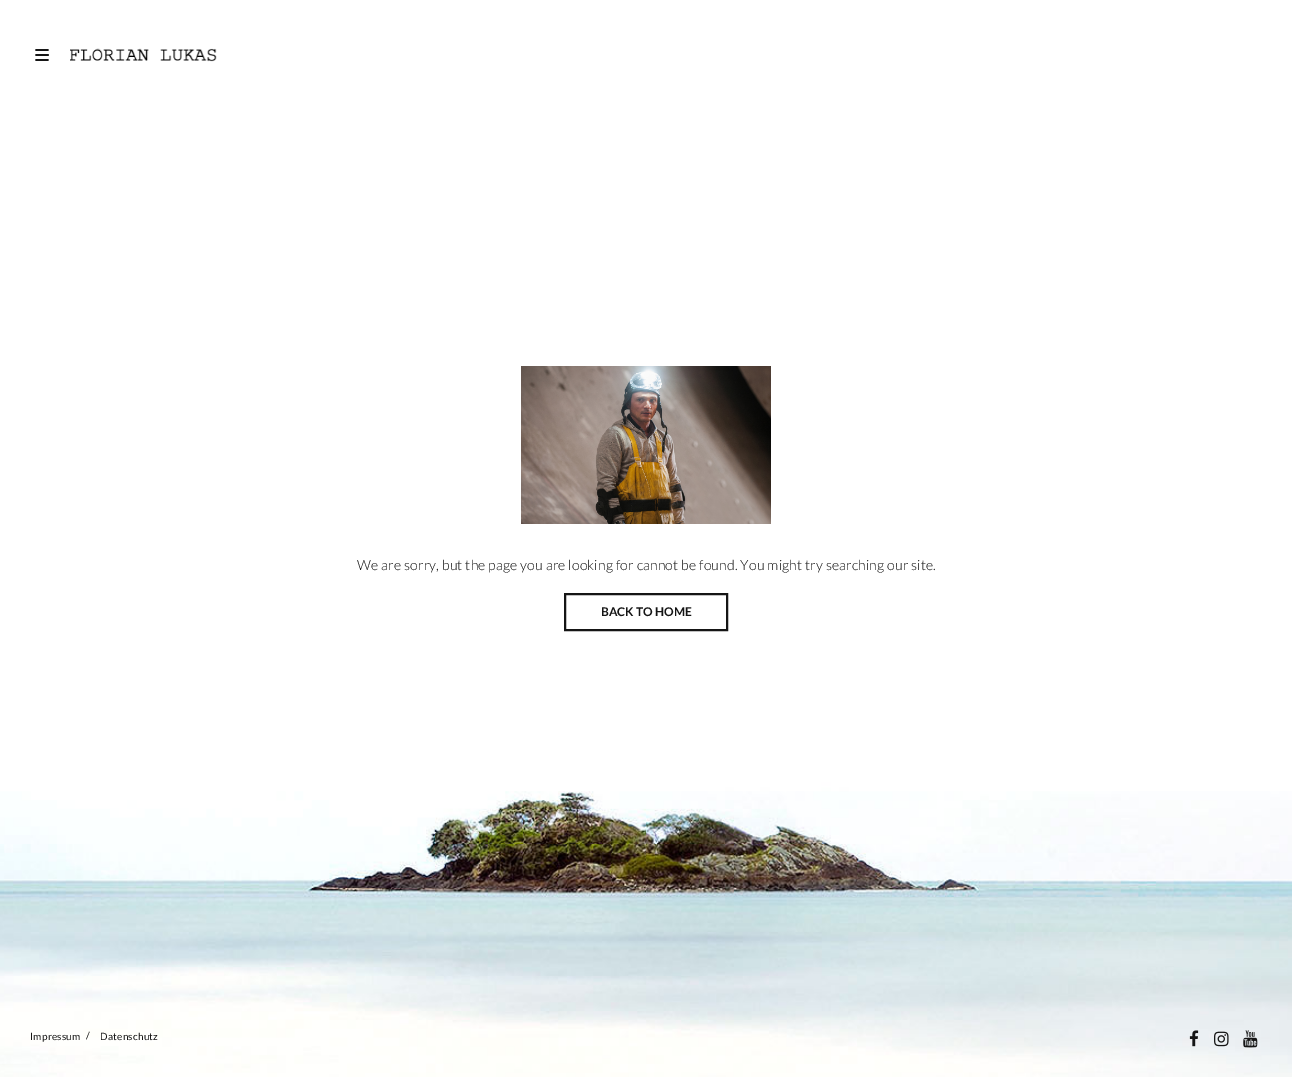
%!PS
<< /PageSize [1292 1077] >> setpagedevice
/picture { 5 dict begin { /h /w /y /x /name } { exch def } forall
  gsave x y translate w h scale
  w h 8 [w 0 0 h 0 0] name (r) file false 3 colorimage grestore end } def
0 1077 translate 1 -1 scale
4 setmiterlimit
1 setgray
0 0 1292 1077 rectfill
(img3.rgb) 0 0 1292 1077 picture
(img1.rgb) 35 49 14 12 picture
(img2.rgb) 70 48 147 14 picture
(img4.rgb) 521 366 250 158 picture
/Lato-Light [14 0 0 -14 0 0] selectfont
0.039 setgray
357 570 moveto 0.15 0 (We are sorry, but the page you are looking for cannot be found. You might try searching our site.) ashow
0.082 setgray
2 setlinewidth
565 594 162 36 rectstroke
/Lato-Bold [12 0 0 -12 0 0] selectfont
601 616 moveto (BACK TO HOME) show
/Lato-Regular [10 0 0 -10 0 0] selectfont
30 1040 moveto 0.25 0 (Impressum) ashow
0.039 setgray
86 1039 moveto 0.25 0 (/) ashow
0.082 setgray
100 1040 moveto 0.25 0 (Datenschutz) ashow
(img5.rgb) 1189 1030 10 17 picture
(img6.rgb) 1214 1031 15 16 picture
(img7.rgb) 1243 1030 15 18 picture
showpage
